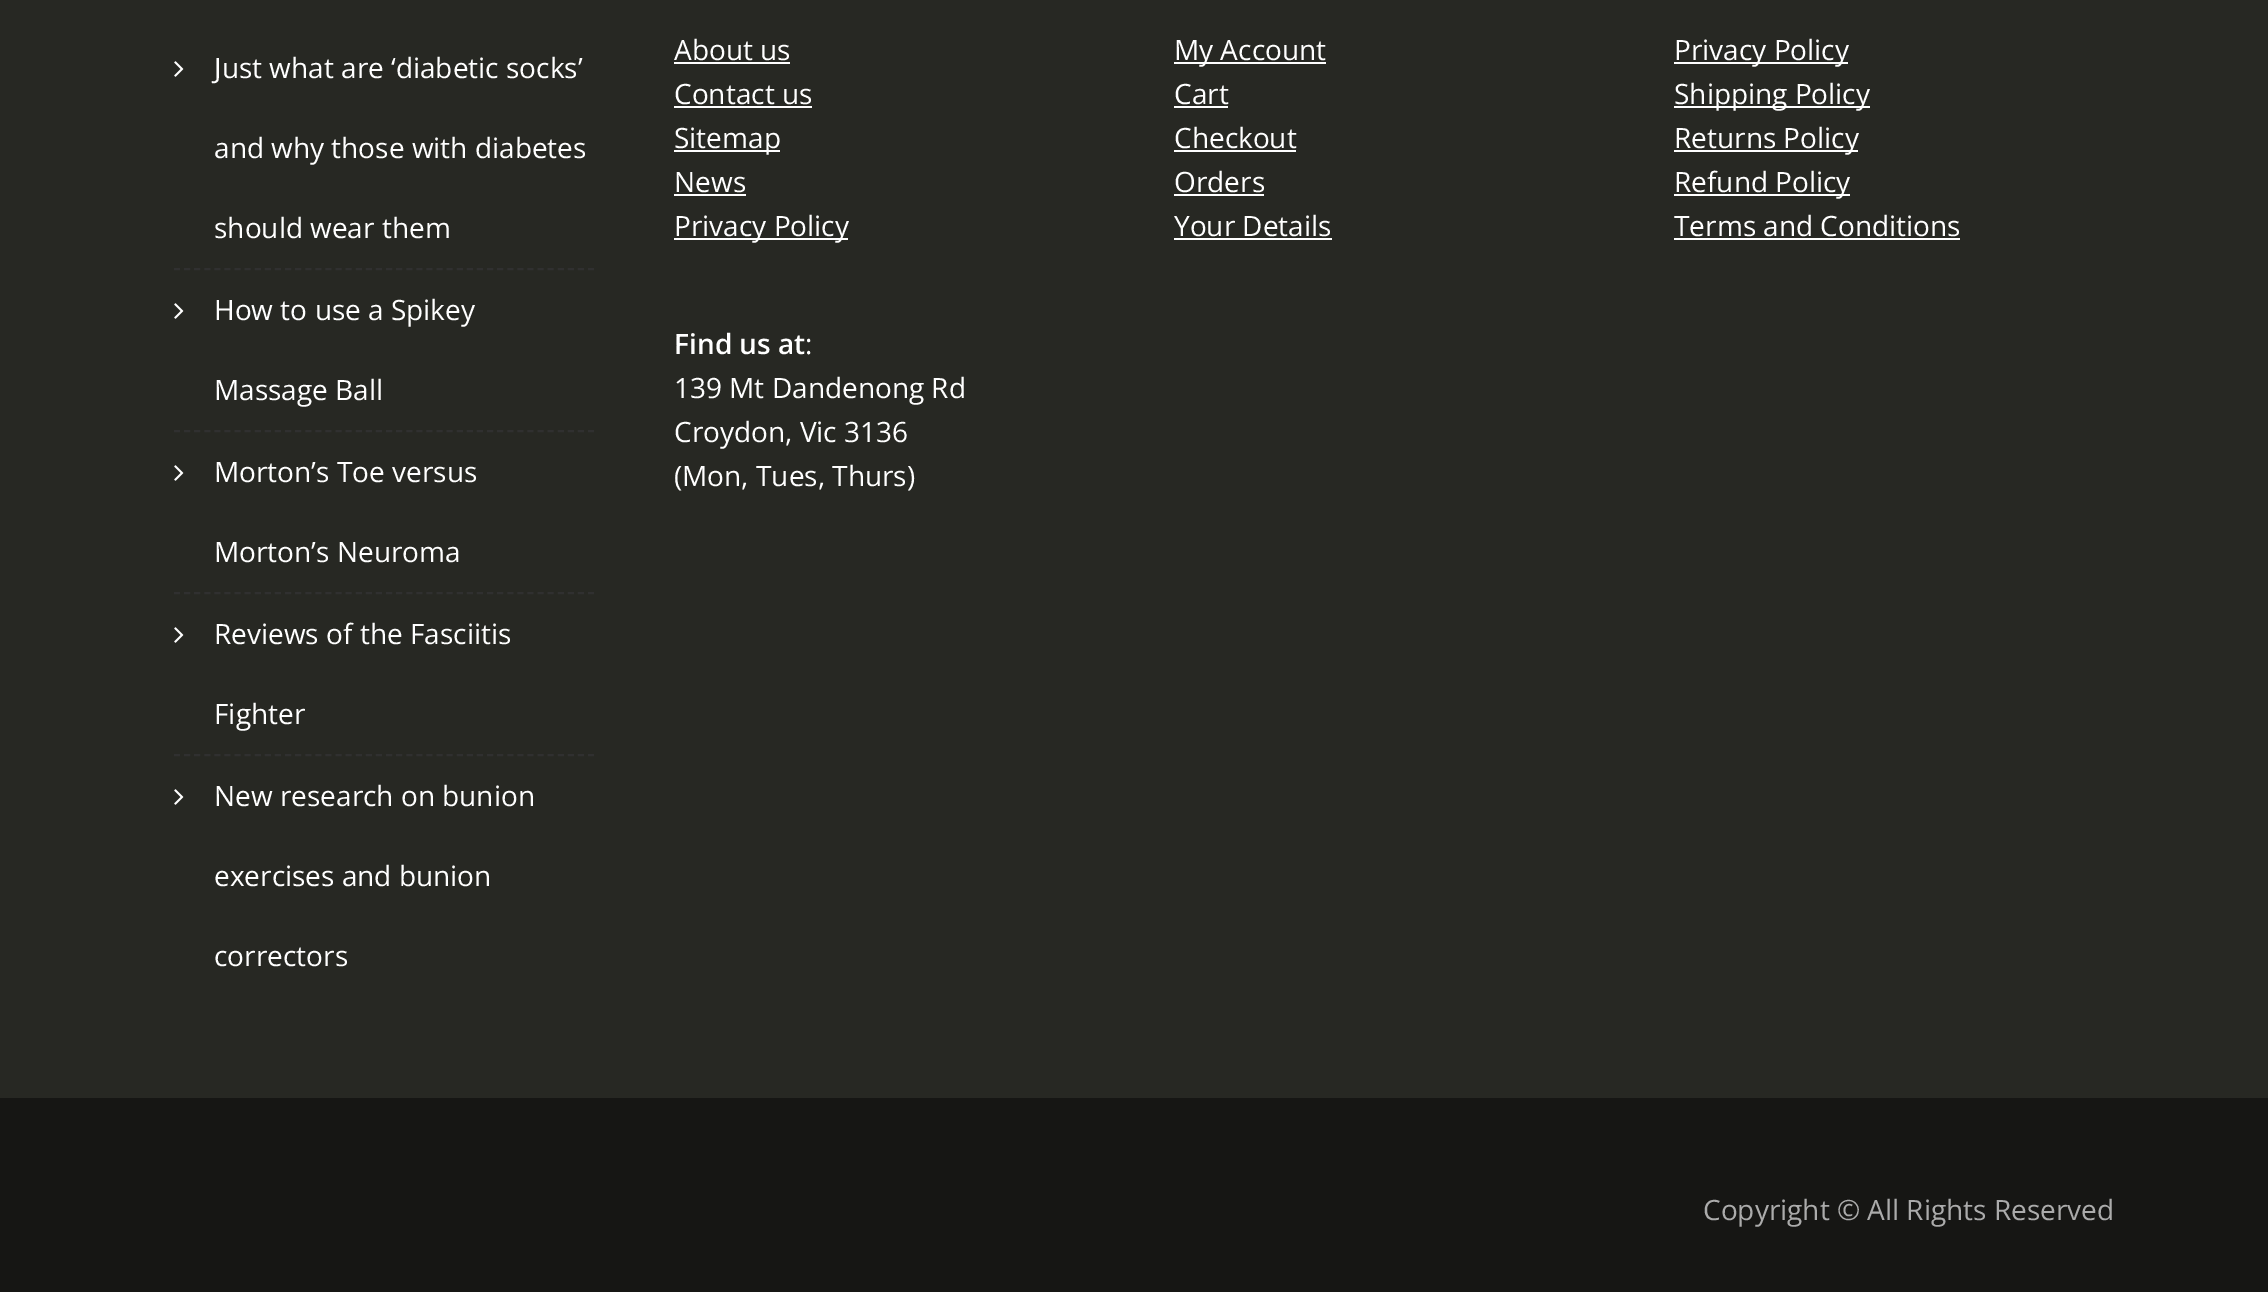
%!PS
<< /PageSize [2268 1292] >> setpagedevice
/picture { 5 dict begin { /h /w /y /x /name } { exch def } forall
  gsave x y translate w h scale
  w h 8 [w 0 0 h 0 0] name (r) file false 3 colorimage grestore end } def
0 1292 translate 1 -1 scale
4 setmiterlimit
0.153 0.157 0.137 setrgbcolor
0 0 2268 1292 rectfill
(img1.rgb) 174 61 10 16 picture
/OpenSans-Regular [28 0 0 -28 0 0] selectfont
1 setgray
214 78 moveto (Just what are ‘diabetic socks’) show
214 158 moveto (and why those with diabetes) show
214 238 moveto (should wear them) show
0.188 setgray
2 setlinewidth
[6 4.1] 0 setdash
newpath 174 269 moveto 594 269 lineto stroke
(img1.rgb) 174 303 10 16 picture
1 setgray
214 320 moveto (How to use a Spikey) show
214 400 moveto (Massage Ball) show
0.188 setgray
newpath 174 431 moveto 594 431 lineto stroke
(img1.rgb) 174 465 10 16 picture
1 setgray
214 482 moveto (Morton’s Toe versus) show
214 562 moveto (Morton’s Neuroma) show
0.188 setgray
newpath 174 593 moveto 594 593 lineto stroke
(img1.rgb) 174 627 10 16 picture
1 setgray
214 644 moveto (Reviews of the Fasciitis) show
214 724 moveto (Fighter) show
0.188 setgray
newpath 174 755 moveto 594 755 lineto stroke
(img1.rgb) 174 789 10 16 picture
1 setgray
214 806 moveto (New research on bunion) show
214 886 moveto (exercises and bunion) show
214 966 moveto (correctors) show
674 60 moveto (About us) show
674 62 116 2 rectfill
674 104 moveto (Contact us) show
674 106 138 2 rectfill
674 150 106 2 rectfill
674 148 moveto (Sitemap) show
674 192 moveto (News) show
674 194 72 2 rectfill
674 238 174 2 rectfill
674 236 moveto (Privacy Policy) show
/OpenSans-SemiBold [28 0 0 -28 0 0] selectfont
674 354 moveto (Find us at) show
/OpenSans-Regular [28 0 0 -28 0 0] selectfont
805 354 moveto (:) show
674 398 moveto (139 Mt Dandenong Rd) show
674 442 moveto (Croydon, Vic 3136) show
674 486 moveto (\(Mon, Tues, Thurs\)) show
1174 62 152 2 rectfill
1174 60 moveto (My Account) show
1174 104 moveto (Cart) show
1174 106 54 2 rectfill
1174 148 moveto (Checkout) show
1174 150 122 2 rectfill
1174 192 moveto (Orders) show
1174 194 90 2 rectfill
1174 236 moveto (Your Details) show
1174 238 158 2 rectfill
1674 62 174 2 rectfill
1674 60 moveto (Privacy Policy) show
1674 106 196 2 rectfill
1674 104 moveto (Shipping Policy) show
1674 150 184 2 rectfill
1674 148 moveto (Returns Policy) show
1674 194 176 2 rectfill
1674 192 moveto (Refund Policy) show
1674 236 moveto (Terms and Conditions) show
1674 238 286 2 rectfill
0.086 0.086 0.078 setrgbcolor
0 1098 2268 194 rectfill
0.671 setgray
1703 1220 moveto (Copyright © All Rights Reserved) show
showpage
